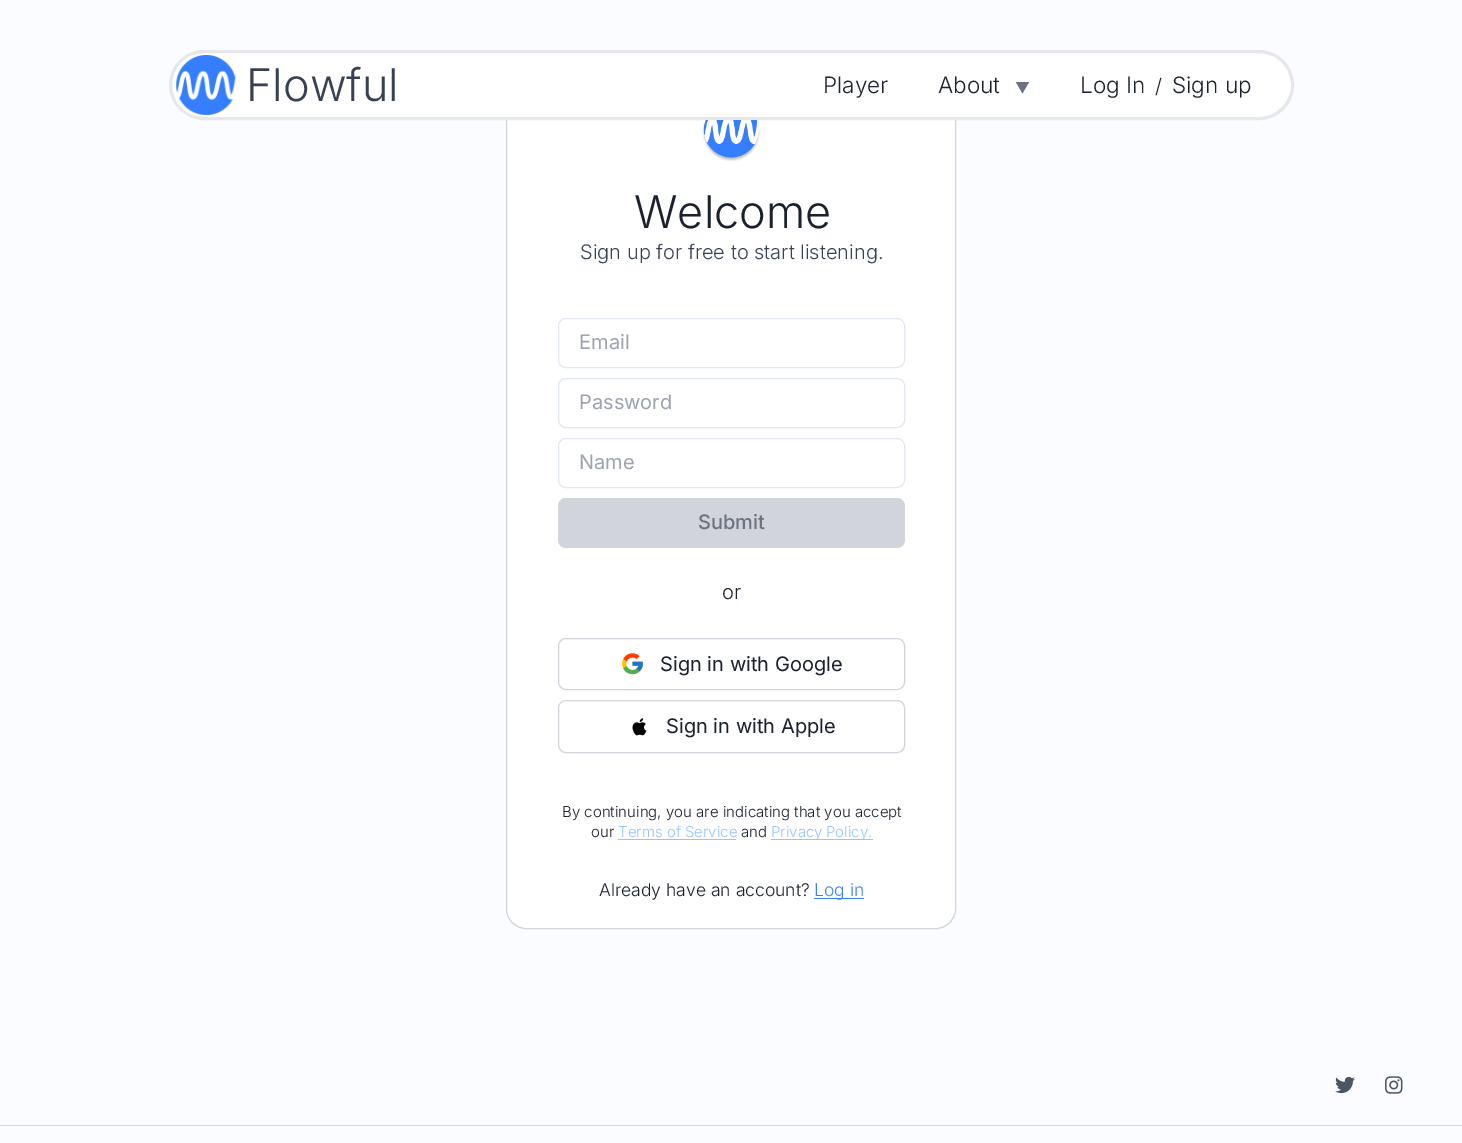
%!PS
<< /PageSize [1462 1143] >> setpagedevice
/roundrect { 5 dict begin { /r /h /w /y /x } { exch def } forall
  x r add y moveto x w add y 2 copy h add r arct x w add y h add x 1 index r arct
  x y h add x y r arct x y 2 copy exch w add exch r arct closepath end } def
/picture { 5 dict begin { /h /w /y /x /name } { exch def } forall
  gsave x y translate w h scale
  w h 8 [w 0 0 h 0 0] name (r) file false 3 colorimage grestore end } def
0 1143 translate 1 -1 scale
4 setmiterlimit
0.98 0.988 1 setrgbcolor
0 0 1462 1143 rectfill
1 setgray
506.5 51.5 449 877 19.5 roundrect gsave fill grestore
0.82 0.835 0.859 setrgbcolor
stroke
1 setgray
170.5 51.5 1122 67 33.5 roundrect gsave fill grestore
0.898 0.906 0.922 setrgbcolor
3 setlinewidth
stroke
(img1.rgb) 176 55 60 60 picture
/Inter-Light [45 0 0 -45 0 0] selectfont
0.216 0.255 0.318 setrgbcolor
246 101 moveto (Flowful) show
/Inter-Light [22.5 0 0 -22.5 0 0] selectfont
0.102 0.125 0.173 setrgbcolor
823 93 moveto (Player) show
938 93 moveto (About) show
/Inter-Light [15 0 0 -15 0 0] selectfont
0.42 0.447 0.502 setrgbcolor
1015 93 moveto (▼) show
/Inter-Light [22.5 0 0 -22.5 0 0] selectfont
0.102 0.125 0.173 setrgbcolor
1080 93 moveto (Log In) show
/Inter-Light [20 0 0 -20 0 0] selectfont
1155 93 moveto (/) show
/Inter-Light [22.5 0 0 -22.5 0 0] selectfont
1172 93 moveto (Sign up) show
(img2.rgb) 702 120 58 41 picture
/Inter-Light [45 0 0 -45 0 0] selectfont
634 228 moveto (Welcome) show
/Inter-Light [20 0 0 -20 0 0] selectfont
0.216 0.255 0.318 setrgbcolor
580 259 moveto (Sign up for free to start listening.) show
0.886 0.91 0.941 setrgbcolor
1 setlinewidth
558.5 318.5 346 49 7.5 roundrect stroke
/Inter-Regular [20 0 0 -20 0 0] selectfont
0.612 0.639 0.686 setrgbcolor
579 349 moveto (Email) show
0.886 0.91 0.941 setrgbcolor
558.5 378.5 346 49 7.5 roundrect stroke
0.612 0.639 0.686 setrgbcolor
579 409 moveto (Password) show
0.886 0.91 0.941 setrgbcolor
558.5 438.5 346 49 7.5 roundrect stroke
0.612 0.639 0.686 setrgbcolor
579 469 moveto (Name) show
0.82 0.835 0.859 setrgbcolor
558 498 347 50 8 roundrect fill
/Inter-Medium [20 0 0 -20 0 0] selectfont
0.42 0.447 0.502 setrgbcolor
698 529 moveto (Submit) show
/Inter-Light [20 0 0 -20 0 0] selectfont
0.102 0.125 0.173 setrgbcolor
722 599 moveto (or) show
0.82 0.835 0.859 setrgbcolor
558.5 638.5 346 51 7.5 roundrect stroke
(img3.rgb) 622 653 21 22 picture
/Inter-Regular [20 0 0 -20 0 0] selectfont
0.102 0.125 0.173 setrgbcolor
660 671 moveto (Sign in with Google) show
0.82 0.835 0.859 setrgbcolor
558.5 700.5 346 52 7.5 roundrect stroke
(img4.rgb) 632 718 15 18 picture
0.102 0.125 0.173 setrgbcolor
666 733 moveto (Sign in with Apple) show
/Inter-Light [15 0 0 -15 0 0] selectfont
562 817 moveto (By continuing, you are indicating that you accept) show
591 837 moveto (our) show
0.576 0.773 0.992 setrgbcolor
618 837 moveto (Terms of Service) show
618 839 118 1 rectfill
0.102 0.125 0.173 setrgbcolor
741 837 moveto (and) show
0.576 0.773 0.992 setrgbcolor
771 839 102 1 rectfill
771 837 moveto -1 0 32 (Privacy Policy.) widthshow
/Inter-Light [17.5 0 0 -17.5 0 0] selectfont
0.102 0.125 0.173 setrgbcolor
599 896 moveto (Already have an account?) show
0.231 0.51 0.965 setrgbcolor
814 898 50 1 rectfill
814 896 moveto (Log in) show
0.82 0.835 0.859 setrgbcolor
0 1125 1462 1 rectfill
(img5.rgb) 1335 1076 20 18 picture
(img6.rgb) 1385 1076 18 18 picture
showpage
